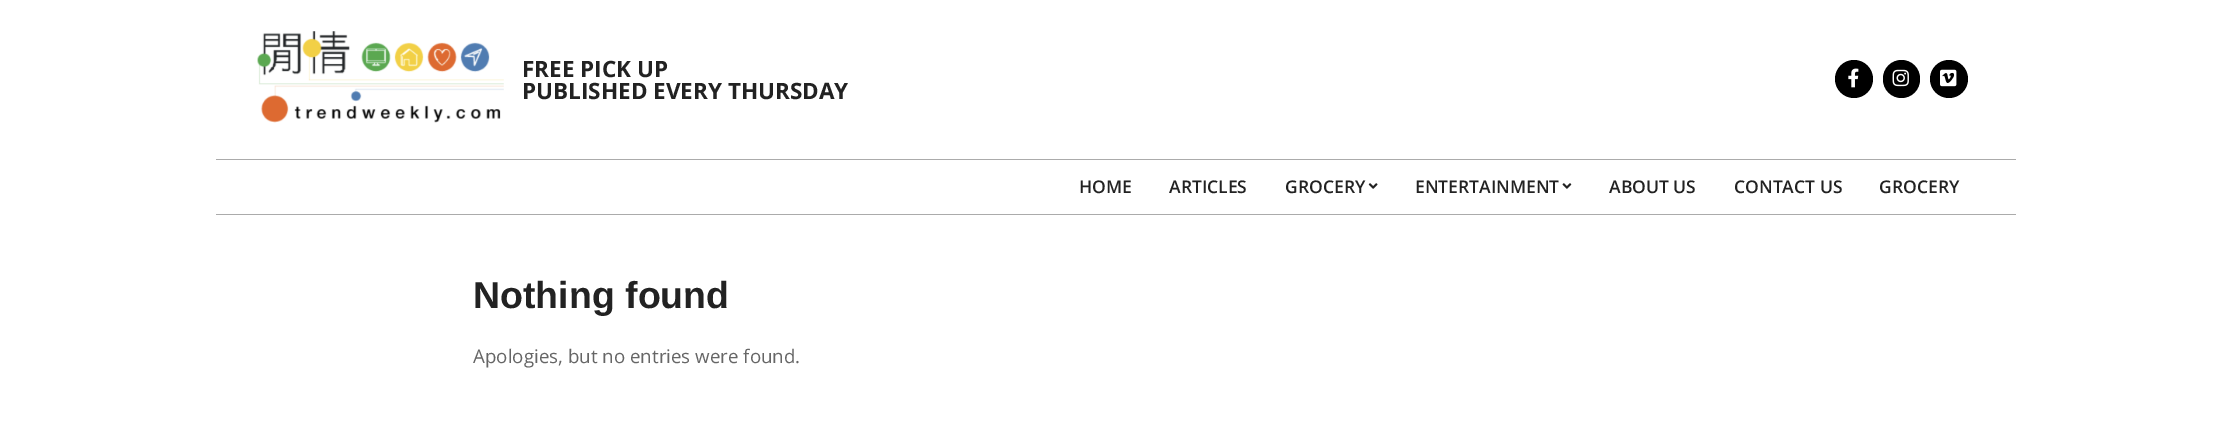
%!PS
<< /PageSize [2231 428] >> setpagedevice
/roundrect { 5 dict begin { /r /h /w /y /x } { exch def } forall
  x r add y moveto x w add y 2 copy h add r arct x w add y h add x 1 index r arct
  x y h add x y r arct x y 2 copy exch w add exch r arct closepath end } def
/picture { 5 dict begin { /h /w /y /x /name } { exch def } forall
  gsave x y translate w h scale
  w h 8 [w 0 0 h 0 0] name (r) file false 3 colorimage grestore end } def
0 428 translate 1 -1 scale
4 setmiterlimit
1 setgray
0 0 2231 428 rectfill
0.671 setgray
216 159 1800 1 rectfill
(img1.rgb) 257 31 247 92 picture
/OpenSans-Bold [22.5 0 0 -22.5 0 0] selectfont
0.133 setgray
522 77 moveto (FREE PICK UP) show
522 99 moveto (PUBLISHED EVERY THURSDAY) show
0 setgray
newpath 1854 79 19 0 360 arc closepath fill
(img2.rgb) 1848 68 11 20 picture
1883 60 37 38 18.5 roundrect fill
(img3.rgb) 1892 69 17 18 picture
newpath 1949 79 19 0 360 arc closepath fill
(img4.rgb) 1940 69 17 18 picture
0.671 setgray
216 214 1800 1 rectfill
/OpenSans-SemiBold [17.5 0 0 -17.5 0 0] selectfont
0.133 setgray
1079 193 moveto (HOME) show
1169 193 moveto (ARTICLES) show
1285 193 moveto (GROCERY) show
(img5.rgb) 1368 183 10 6 picture
1415 193 moveto (ENTERTAINMENT) show
(img6.rgb) 1562 183 10 6 picture
1609 193 moveto (ABOUT US) show
1734 193 moveto (CONTACT US) show
1879 193 moveto (GROCERY) show
/LiberationSans-Bold [37.5 0 0 -37.5 0 0] selectfont
473 308 moveto (Nothing found) show
/OpenSans-Regular [18.75 0 0 -18.75 0 0] selectfont
0.4 setgray
473 363 moveto (Apologies, but no entries were found.) show
showpage
